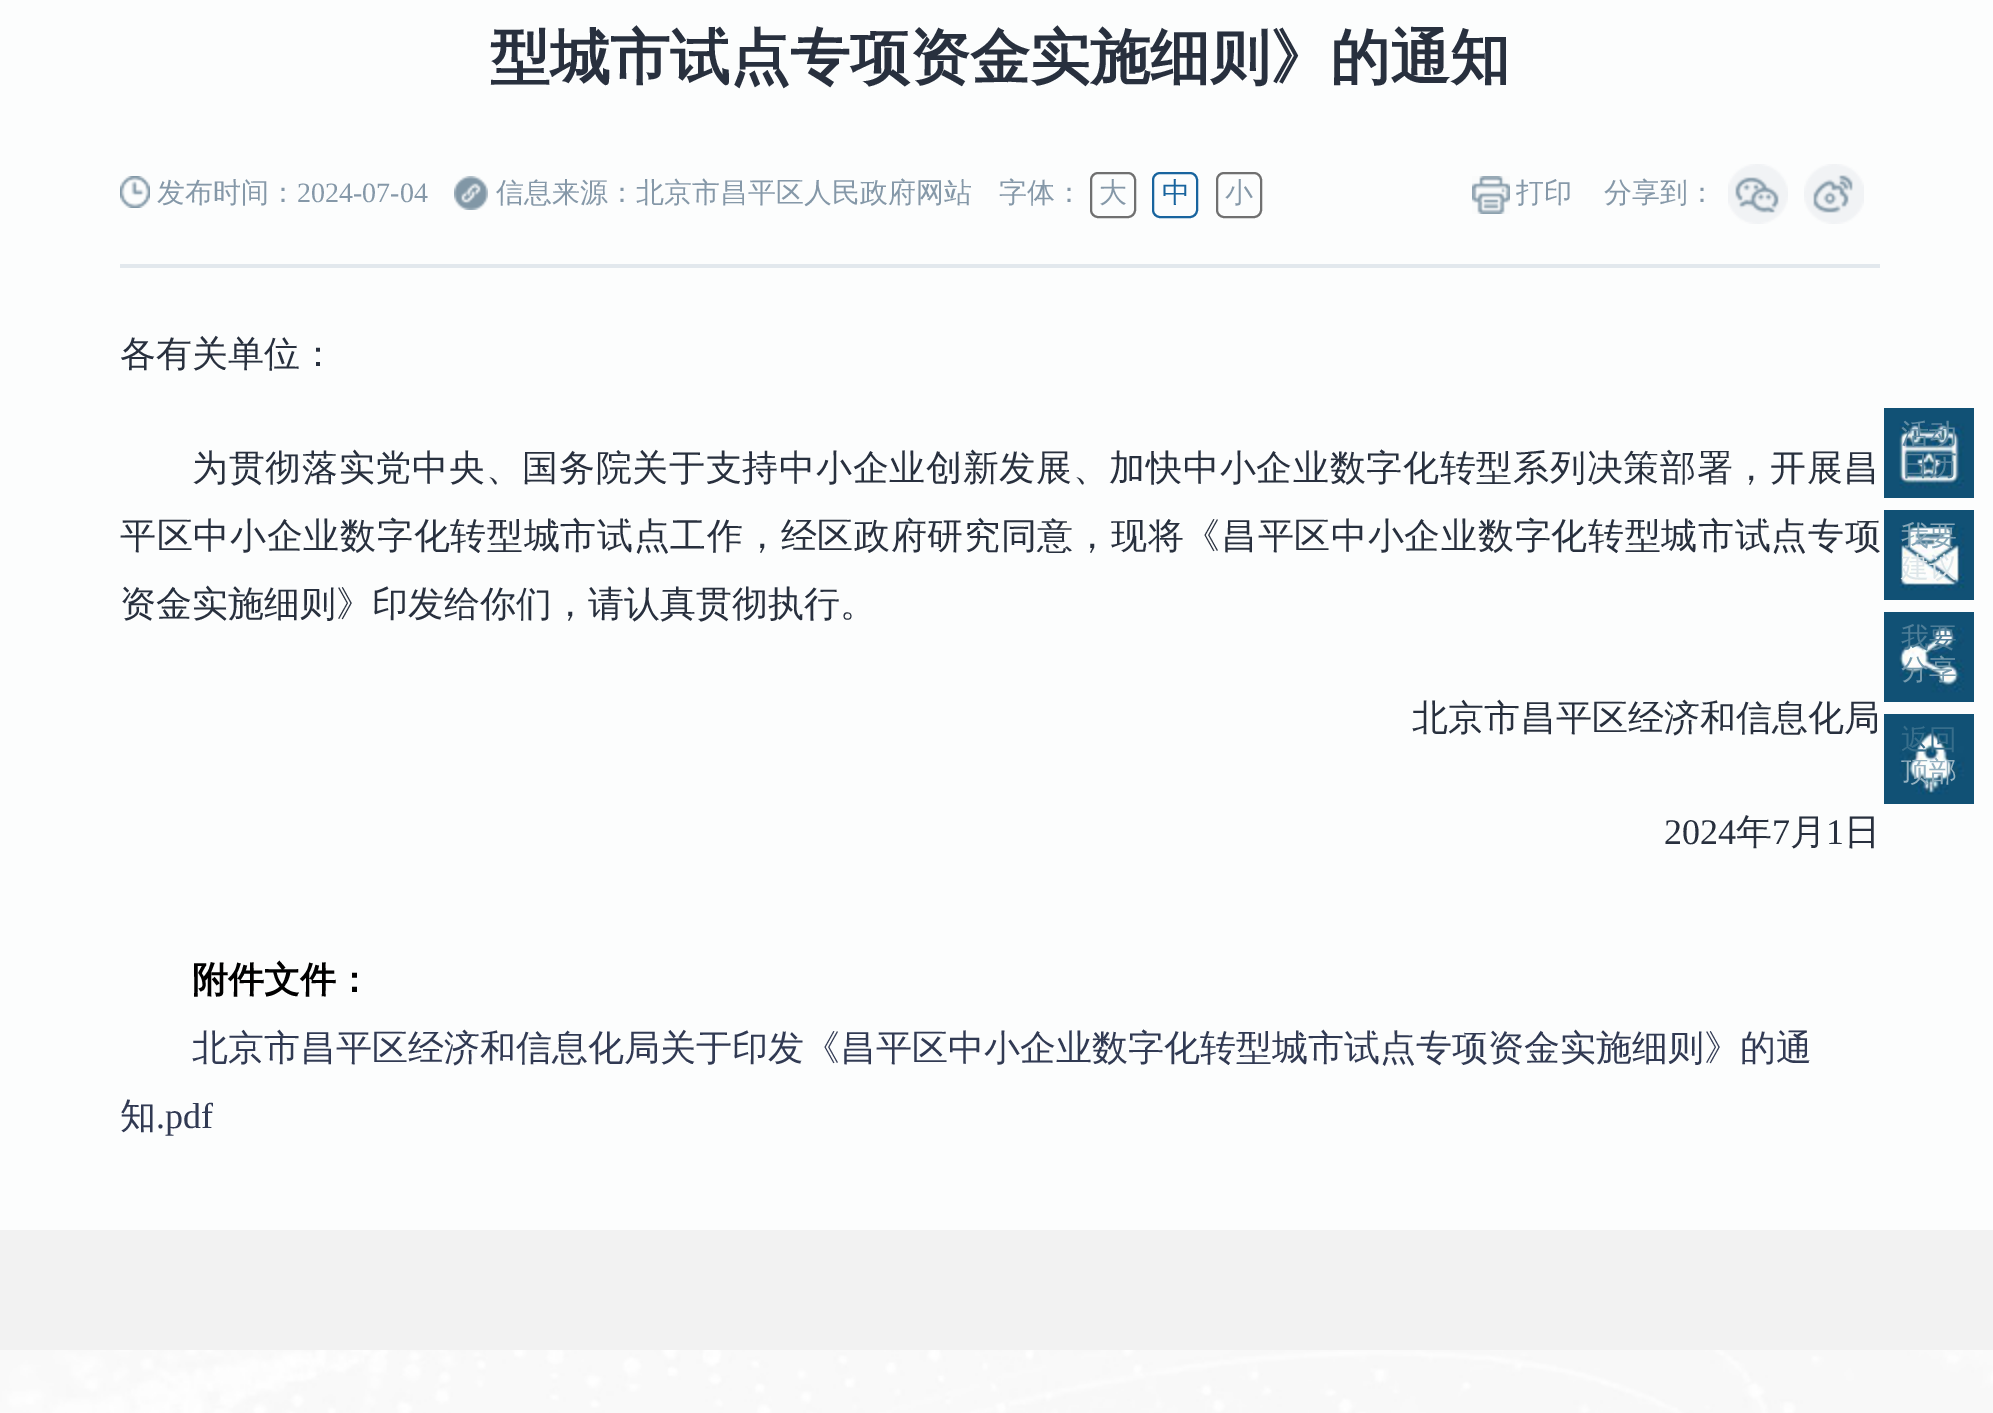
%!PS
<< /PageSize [1993 1413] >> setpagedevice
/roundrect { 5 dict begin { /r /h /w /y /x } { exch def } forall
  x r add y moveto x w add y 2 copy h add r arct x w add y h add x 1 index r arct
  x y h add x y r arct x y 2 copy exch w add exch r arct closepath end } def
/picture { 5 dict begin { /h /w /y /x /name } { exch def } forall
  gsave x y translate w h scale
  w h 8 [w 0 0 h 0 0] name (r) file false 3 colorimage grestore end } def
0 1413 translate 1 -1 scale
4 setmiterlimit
0.949 setgray
0 0 1993 1413 rectfill
0.988 0.992 0.992 setrgbcolor
0 0 1993 1230 rectfill
0.886 0.91 0.929 setrgbcolor
120 264 1760 4 rectfill
/WenQuanYiZenHei-Bold [60 0 0 -60 0 0] selectfont
0.157 0.188 0.243 setrgbcolor
490 78 moveto (型城市试点专项资金实施细则》的通知) show
(img1.rgb) 120 176 30 32 picture
/WenQuanYiZenHei-Medium [28 0 0 -28 0 0] selectfont
0.522 0.596 0.659 setrgbcolor
157 202 moveto (发布时间：) show
/LiberationSerif-Regular [28 0 0 -28 0 0] selectfont
297 202 moveto (2024-07-04) show
(img2.rgb) 454 176 34 34 picture
/WenQuanYiZenHei-Medium [28 0 0 -28 0 0] selectfont
496 202 moveto (信息来源：北京市昌平区人民政府网站) show
999 202 moveto (字体：) show
0.439 setgray
2 setlinewidth
1091 173 44 44 7 roundrect stroke
0.522 0.596 0.659 setrgbcolor
1099 202 moveto (大) show
0.094 0.392 0.62 setrgbcolor
1153 173 44 44 7 roundrect stroke
1162 202 moveto (中) show
0.439 setgray
1217 173 44 44 7 roundrect stroke
0.522 0.596 0.659 setrgbcolor
1225 202 moveto (小) show
(img3.rgb) 1472 176 38 38 picture
1516 202 moveto (打印) show
1604 202 moveto (分享到：) show
(img4.rgb) 1728 164 60 60 picture
(img5.rgb) 1804 164 60 60 picture
/WenQuanYiZenHei-Medium [36 0 0 -36 0 0] selectfont
0.157 0.188 0.243 setrgbcolor
120 366 moveto (各有关单位：) show
192 480 moveto 0.7 0 (为贯彻落实党中央、国务院关于支持中小企业创新发展、加快中小企业数字化转型系列决策部署，开展昌) ashow
120 548 moveto 0.7 0 (平区中小企业数字化转型城市试点工作，经区政府研究同意，现将《昌平区中小企业数字化转型城市试点专项) ashow
120 616 moveto (资金实施细则》印发给你们，请认真贯彻执行。) show
1412 730 moveto (北京市昌平区经济和信息化局) show
/LiberationSerif-Regular [36 0 0 -36 0 0] selectfont
1664 844 moveto (2024) show
/WenQuanYiZenHei-Medium [36 0 0 -36 0 0] selectfont
1736 844 moveto (年) show
/LiberationSerif-Regular [36 0 0 -36 0 0] selectfont
1772 844 moveto (7) show
/WenQuanYiZenHei-Medium [36 0 0 -36 0 0] selectfont
1790 844 moveto (月) show
/LiberationSerif-Regular [36 0 0 -36 0 0] selectfont
1826 844 moveto (1) show
/WenQuanYiZenHei-Medium [36 0 0 -36 0 0] selectfont
1844 844 moveto (日) show
/WenQuanYiZenHei-Bold [36 0 0 -36 0 0] selectfont
0 setgray
192 992 moveto (附件文件：) show
/WenQuanYiZenHei-Medium [36 0 0 -36 0 0] selectfont
0.192 0.227 0.325 setrgbcolor
192 1060 moveto (北京市昌平区经济和信息化局关于印发《昌平区中小企业数字化转型城市试点专项资金实施细则》的通) show
120 1128 moveto (知) show
/LiberationSerif-Regular [36 0 0 -36 0 0] selectfont
156 1128 moveto (.pdf) show
(img6.rgb) 1884 408 90 90 picture
/WenQuanYiZenHei-Medium [28 0 0 -28 0 0] selectfont
0.38 0.545 0.639 setrgbcolor
1901 443 moveto (活动) show
0.341 0.514 0.612 setrgbcolor
1901 475 moveto (日历) show
(img7.rgb) 1884 510 90 90 picture
0.525 0.651 0.718 setrgbcolor
1901 545 moveto (我要) show
0.867 0.902 0.914 setrgbcolor
1901 577 moveto (建议) show
(img8.rgb) 1884 612 90 90 picture
0.31 0.494 0.596 setrgbcolor
1901 647 moveto (我要) show
0.459 0.604 0.678 setrgbcolor
1901 679 moveto (分享) show
(img9.rgb) 1884 714 90 90 picture
0.22 0.431 0.545 setrgbcolor
1901 749 moveto (返回) show
0.58 0.694 0.753 setrgbcolor
1901 781 moveto (顶部) show
(img10.rgb) 0 1350 1993 63 picture
showpage
